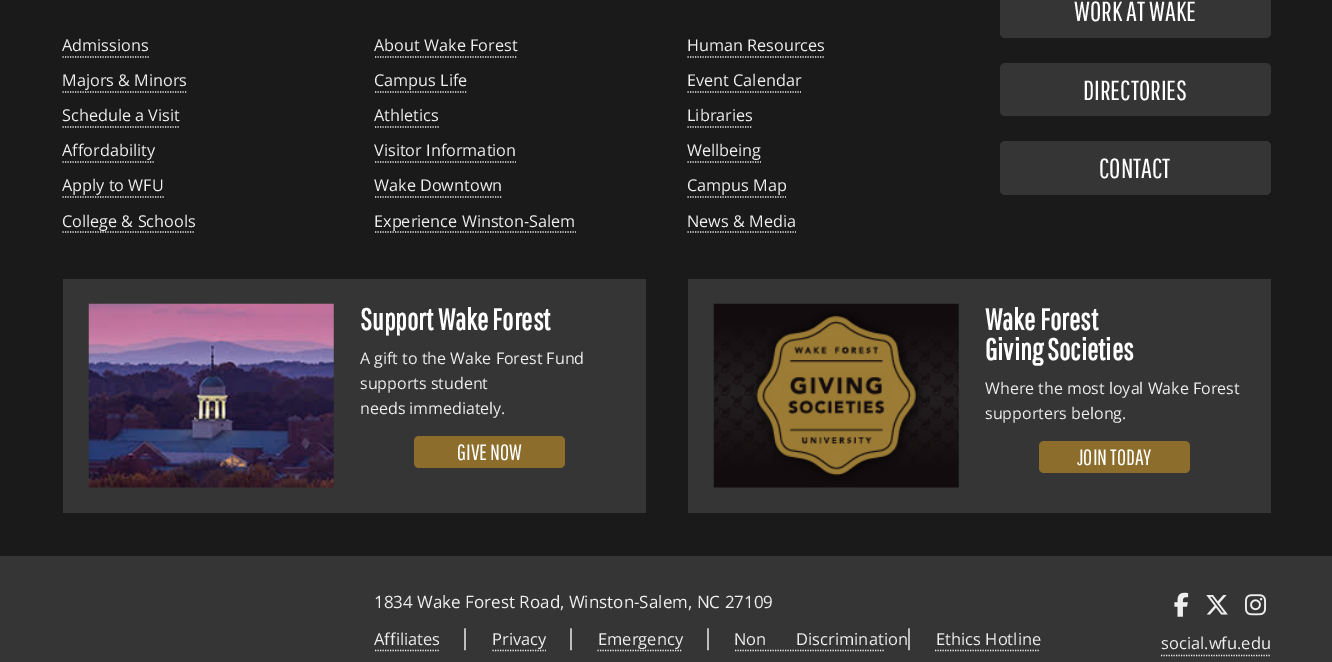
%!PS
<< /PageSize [1332 662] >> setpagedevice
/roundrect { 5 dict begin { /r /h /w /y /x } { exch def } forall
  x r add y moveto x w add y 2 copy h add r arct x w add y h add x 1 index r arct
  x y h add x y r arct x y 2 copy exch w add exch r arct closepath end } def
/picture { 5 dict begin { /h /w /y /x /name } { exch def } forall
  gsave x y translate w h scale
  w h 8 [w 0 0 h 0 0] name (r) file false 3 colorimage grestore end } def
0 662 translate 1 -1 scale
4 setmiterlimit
0.102 setgray
0 0 1332 662 rectfill
/OpenSans-Regular [16.25 0 0 -16.25 0 0] selectfont
0.937 setgray
62 51 moveto (Admissions) show
1.2 setlinewidth
[1.25 1.25] 0 setdash
newpath 62.5 57 moveto 149 57 lineto stroke
62 86 moveto (Majors & Minors) show
newpath 62.5 92 moveto 187.5 92 lineto stroke
62 121 moveto (Schedule a Visit) show
newpath 62.5 127 moveto 180 127 lineto stroke
62 156 moveto (Affordability) show
newpath 62.5 162 moveto 155 162 lineto stroke
62 191 moveto (Apply to WFU) show
newpath 62.5 197 moveto 164 197 lineto stroke
62 227 moveto (College & Schools) show
newpath 62.5 232 moveto 195 232 lineto stroke
374 51 moveto (About Wake Forest) show
newpath 375 57 moveto 517.5 57 lineto stroke
374 86 moveto (Campus Life) show
newpath 375 92 moveto 467.5 92 lineto stroke
374 121 moveto (Athletics) show
newpath 375 127 moveto 439 127 lineto stroke
374 156 moveto (Visitor Information) show
newpath 375 162 moveto 516 162 lineto stroke
374 191 moveto (Wake Downtown) show
newpath 375 197 moveto 502.5 197 lineto stroke
374 227 moveto (Experience Winston-Salem) show
newpath 375 232 moveto 576 232 lineto stroke
687 51 moveto (Human Resources) show
newpath 687.5 57 moveto 825 57 lineto stroke
687 86 moveto (Event Calendar) show
newpath 687.5 92 moveto 801 92 lineto stroke
687 121 moveto (Libraries) show
newpath 687.5 127 moveto 752.5 127 lineto stroke
687 156 moveto (Wellbeing) show
newpath 687.5 162 moveto 761 162 lineto stroke
687 191 moveto (Campus Map) show
newpath 687.5 197 moveto 786 197 lineto stroke
687 227 moveto (News & Media) show
newpath 687.5 232 moveto 796 232 lineto stroke
0.208 setgray
1000 -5 271 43 5 roundrect fill
/PathwayGothicOne-Regular [27.5 0 0 -27.5 0 0] selectfont
1 setgray
1074 21 moveto (WORK AT WAKE) show
0.208 setgray
1000 63 271 53 5 roundrect fill
1 setgray
1083 100 moveto (DIRECTORIES) show
0.208 setgray
1000 141 271 54 5 roundrect fill
1 setgray
1099 178 moveto (CONTACT) show
0.208 setgray
63 279 583 234 rectfill
(img1.rgb) 88 303 246 185 picture
/PathwayGothicOne-Bold [30 0 0 -30 0 0] selectfont
1 setgray
360 330 moveto (Support Wake Forest) show
/OpenSans-Regular [16 0 0 -16 0 0] selectfont
0.937 setgray
360 364 moveto (A gift to the Wake Forest Fund) show
360 389 moveto (supports student) show
360 414 moveto (needs immediately.) show
0.549 0.427 0.173 setrgbcolor
414 436 151 32 5 roundrect fill
/PathwayGothicOne-Regular [22 0 0 -22 0 0] selectfont
1 setgray
457 460 moveto (GIVE NOW) show
0.208 setgray
688 279 583 234 rectfill
(img2.rgb) 713 303 246 185 picture
/PathwayGothicOne-Bold [30 0 0 -30 0 0] selectfont
1 setgray
985 330 moveto (Wake Forest) show
985 360 moveto (Giving Societies) show
/OpenSans-Regular [16 0 0 -16 0 0] selectfont
0.937 setgray
985 394 moveto (Where the most loyal Wake Forest) show
985 419 moveto (supporters belong.) show
0.549 0.427 0.173 setrgbcolor
1039 441 151 32 5 roundrect fill
/PathwayGothicOne-Regular [22 0 0 -22 0 0] selectfont
1 setgray
1077 465 moveto (JOIN TODAY) show
0.208 setgray
0 556 1332 106 rectfill
/OpenSans-Regular [17 0 0 -17 0 0] selectfont
0.937 setgray
374 608 moveto (1834 Wake Forest Road, Winston-Salem, NC 27109) show
/OpenSans-Regular [16.5 0 0 -16.5 0 0] selectfont
374 645 moveto (Affiliates) show
newpath 375 650.5 moveto 440 650.5 lineto stroke
/OpenSans-Regular [22 0 0 -22 0 0] selectfont
459 645 moveto (|) show
/OpenSans-Regular [16.5 0 0 -16.5 0 0] selectfont
492 645 moveto (Privacy) show
newpath 492.5 650.5 moveto 546 650.5 lineto stroke
/OpenSans-Regular [22 0 0 -22 0 0] selectfont
565 645 moveto (|) show
/OpenSans-Regular [16.5 0 0 -16.5 0 0] selectfont
598 645 moveto (Emergency) show
newpath 597.5 650.5 moveto 682.5 650.5 lineto stroke
/OpenSans-Regular [22 0 0 -22 0 0] selectfont
702 645 moveto (|) show
/OpenSans-Regular [16.5 0 0 -16.5 0 0] selectfont
734 645 moveto (Non‑Discrimination) show
newpath 735 650.5 moveto 884 650.5 lineto stroke
/OpenSans-Regular [22 0 0 -22 0 0] selectfont
903 645 moveto (|) show
/OpenSans-Regular [16.5 0 0 -16.5 0 0] selectfont
936 645 moveto (Ethics Hotline) show
newpath 935 650.5 moveto 1040 650.5 lineto stroke
(img3.rgb) 1174 592 15 25 picture
(img4.rgb) 1206 595 22 20 picture
(img5.rgb) 1245 594 21 22 picture
1161 649 moveto (social.wfu.edu) show
newpath 1161 655.5 moveto 1270 655.5 lineto stroke
showpage
